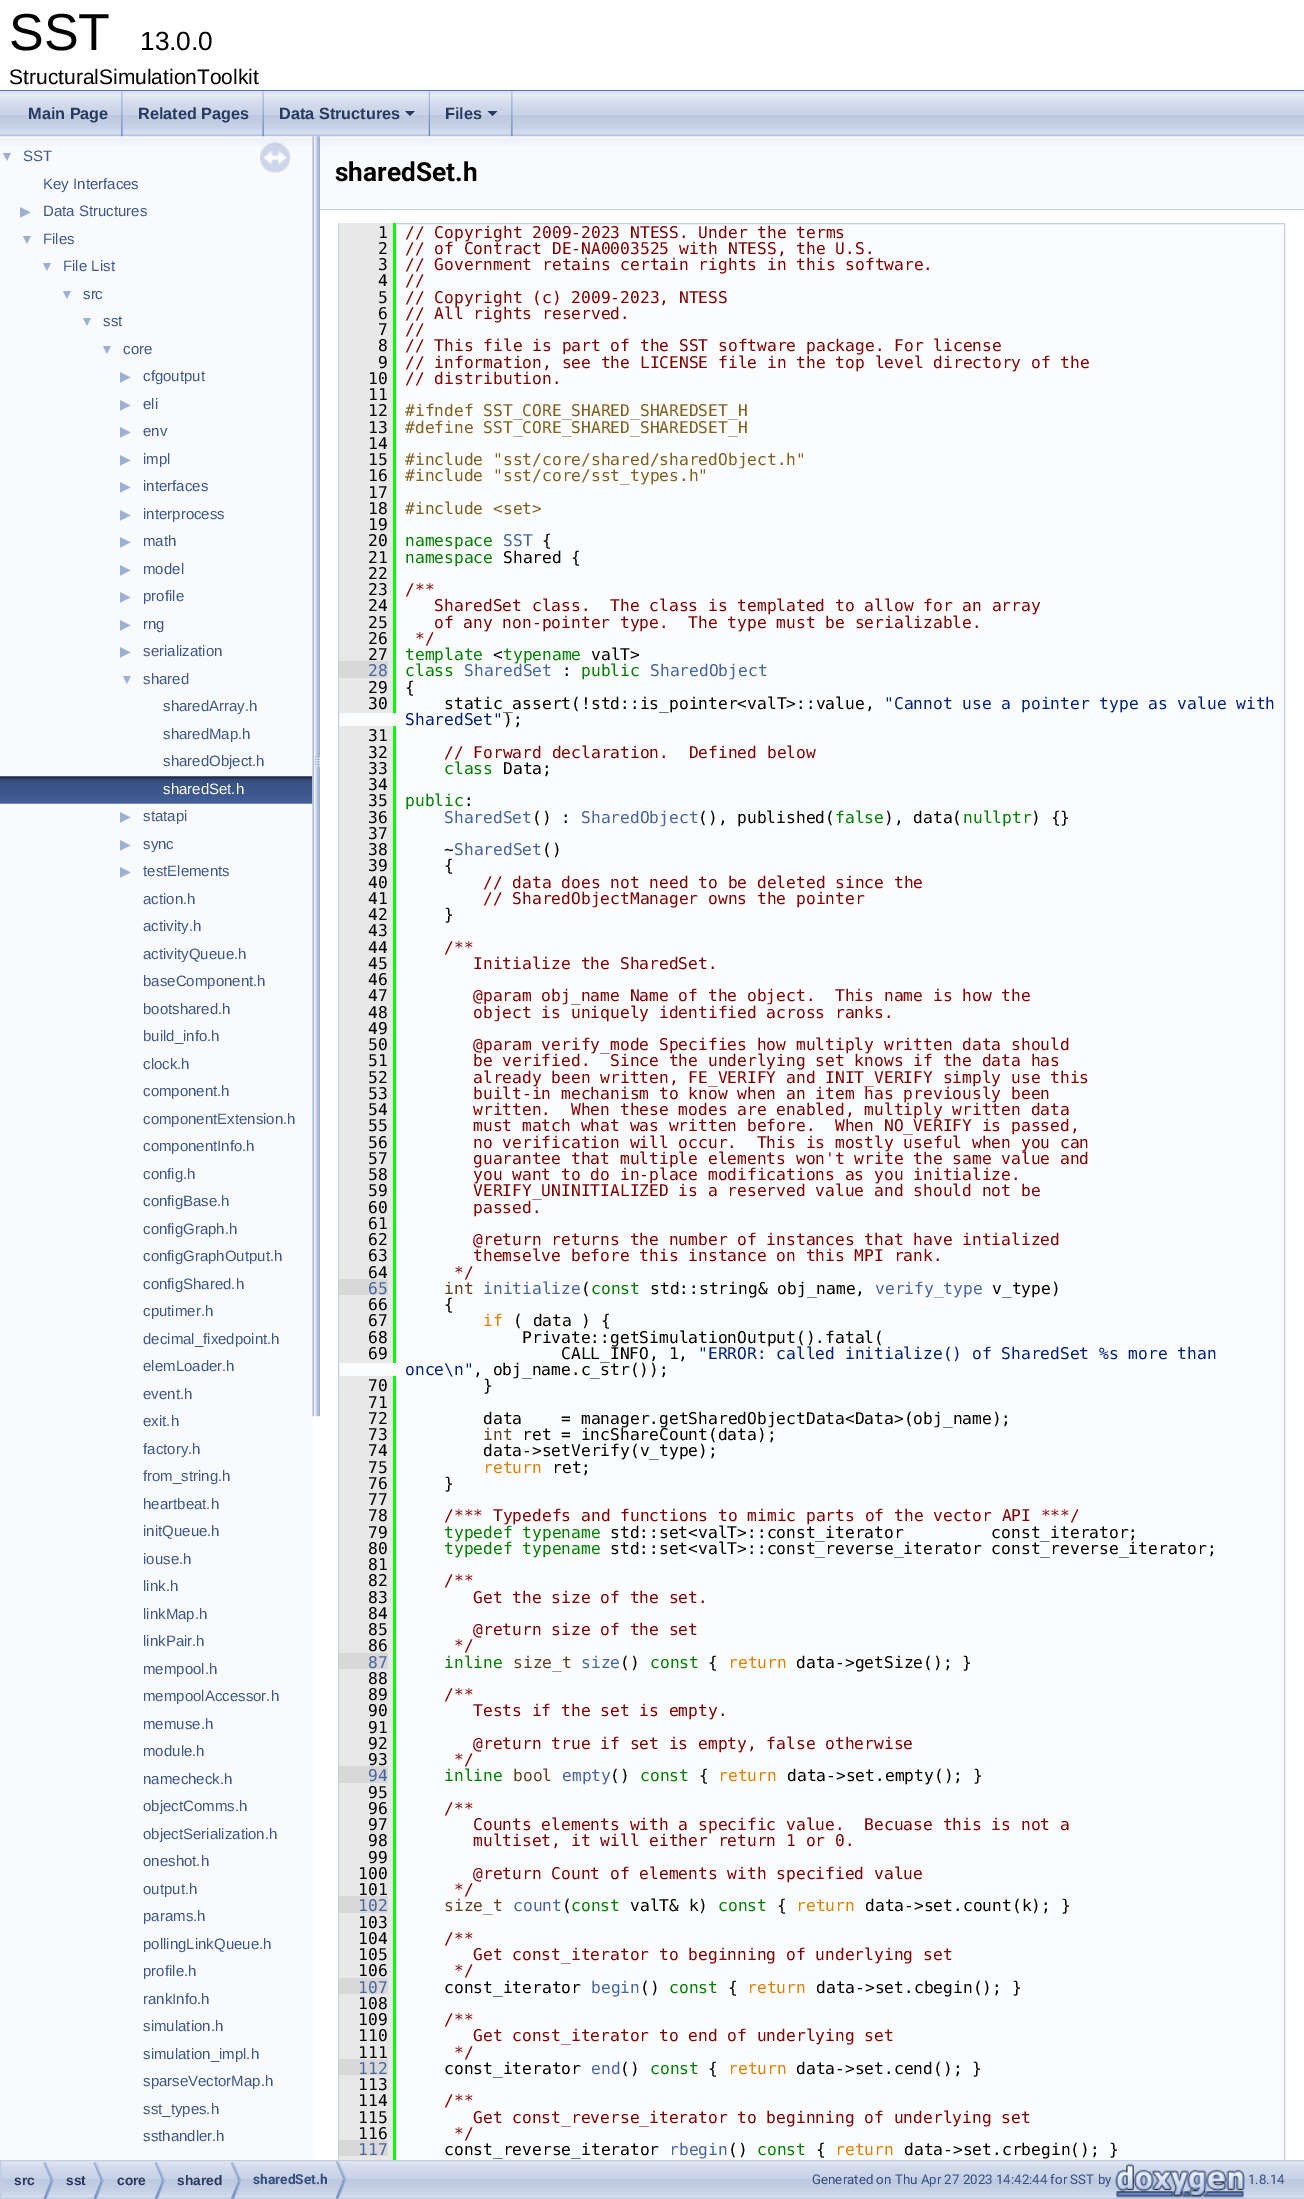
%!PS
<< /PageSize [1304 2199] >> setpagedevice
/picture { 5 dict begin { /h /w /y /x /name } { exch def } forall
  gsave x y translate w h scale
  w h 8 [w 0 0 h 0 0] name (r) file false 3 colorimage grestore end } def
0 2199 translate 1 -1 scale
4 setmiterlimit
1 setgray
0 0 1304 2199 rectfill
0.325 0.451 0.706 setrgbcolor
0 90 1304 1 rectfill
/LiberationSans-Regular [52 0 0 -52 0 0] selectfont
0 setgray
9 50 moveto (SST) show
/LiberationSans-Regular [26.25 0 0 -26.25 0 0] selectfont
140 50 moveto (13.0.0) show
/LiberationSans-Regular [21 0 0 -21 0 0] selectfont
9 84 moveto (StructuralSimulationToolkit) show
0.976 0.98 0.988 setrgbcolor
0 136 313 2024 rectfill
(img6.rgb) 0 136 313 10 picture
(img8.rgb) 0 776 313 28 picture
(img9.rgb) 312 136 8 1281 picture
320 136 984 73 rectfill
(img1.rgb) 0 91 1304 46 picture
(img2.rgb) 121 91 2 46 picture
/LiberationSans-Bold [16.25 0 0 -16.25 0 0] selectfont
0.157 0.227 0.365 setrgbcolor
28 119 moveto (Main Page) show
(img3.rgb) 262 91 2 46 picture
138 119 moveto (Related Pages) show
(img4.rgb) 428 91 2 46 picture
279 119 moveto (Data Structures) show
newpath 405 111 moveto 415 111 lineto 410 116 lineto closepath fill
(img5.rgb) 511 91 2 46 picture
445 119 moveto (Files) show
newpath 487.5 111 moveto 497.5 111 lineto 492.5 116 lineto closepath fill
(img7.rgb) 260 142 30 31 picture
/LiberationSans-Regular [14 0 0 -14 0 0] selectfont
0.612 0.686 0.831 setrgbcolor
0 161 moveto (▼) show
/LiberationSans-Regular [15 0 0 -15 0 0] selectfont
0.239 0.341 0.549 setrgbcolor
23 161 moveto (SST) show
43 189 moveto (Key Interfaces) show
/DejaVuSans-Regular [14 0 0 -14 0 0] selectfont
0.612 0.686 0.831 setrgbcolor
20 216 moveto (▶) show
/LiberationSans-Regular [15 0 0 -15 0 0] selectfont
0.239 0.341 0.549 setrgbcolor
43 216 moveto (Data Structures) show
/LiberationSans-Regular [14 0 0 -14 0 0] selectfont
0.612 0.686 0.831 setrgbcolor
20 244 moveto (▼) show
/LiberationSans-Regular [15 0 0 -15 0 0] selectfont
0.239 0.341 0.549 setrgbcolor
43 244 moveto (Files) show
/LiberationSans-Regular [14 0 0 -14 0 0] selectfont
0.612 0.686 0.831 setrgbcolor
40 271 moveto (▼) show
/LiberationSans-Regular [15 0 0 -15 0 0] selectfont
0.239 0.341 0.549 setrgbcolor
63 271 moveto (File List) show
/LiberationSans-Regular [14 0 0 -14 0 0] selectfont
0.612 0.686 0.831 setrgbcolor
60 299 moveto (▼) show
/LiberationSans-Regular [15 0 0 -15 0 0] selectfont
0.239 0.341 0.549 setrgbcolor
83 299 moveto (src) show
/LiberationSans-Regular [14 0 0 -14 0 0] selectfont
0.612 0.686 0.831 setrgbcolor
80 326 moveto (▼) show
/LiberationSans-Regular [15 0 0 -15 0 0] selectfont
0.239 0.341 0.549 setrgbcolor
103 326 moveto (sst) show
/LiberationSans-Regular [14 0 0 -14 0 0] selectfont
0.612 0.686 0.831 setrgbcolor
100 354 moveto (▼) show
/LiberationSans-Regular [15 0 0 -15 0 0] selectfont
0.239 0.341 0.549 setrgbcolor
123 354 moveto (core) show
/DejaVuSans-Regular [14 0 0 -14 0 0] selectfont
0.612 0.686 0.831 setrgbcolor
120 381 moveto (▶) show
/LiberationSans-Regular [15 0 0 -15 0 0] selectfont
0.239 0.341 0.549 setrgbcolor
143 381 moveto (cfgoutput) show
/DejaVuSans-Regular [14 0 0 -14 0 0] selectfont
0.612 0.686 0.831 setrgbcolor
120 409 moveto (▶) show
/LiberationSans-Regular [15 0 0 -15 0 0] selectfont
0.239 0.341 0.549 setrgbcolor
143 409 moveto (eli) show
/DejaVuSans-Regular [14 0 0 -14 0 0] selectfont
0.612 0.686 0.831 setrgbcolor
120 436 moveto (▶) show
/LiberationSans-Regular [15 0 0 -15 0 0] selectfont
0.239 0.341 0.549 setrgbcolor
143 436 moveto (env) show
/DejaVuSans-Regular [14 0 0 -14 0 0] selectfont
0.612 0.686 0.831 setrgbcolor
120 464 moveto (▶) show
/LiberationSans-Regular [15 0 0 -15 0 0] selectfont
0.239 0.341 0.549 setrgbcolor
143 464 moveto (impl) show
/DejaVuSans-Regular [14 0 0 -14 0 0] selectfont
0.612 0.686 0.831 setrgbcolor
120 491 moveto (▶) show
/LiberationSans-Regular [15 0 0 -15 0 0] selectfont
0.239 0.341 0.549 setrgbcolor
143 491 moveto (interfaces) show
/DejaVuSans-Regular [14 0 0 -14 0 0] selectfont
0.612 0.686 0.831 setrgbcolor
120 519 moveto (▶) show
/LiberationSans-Regular [15 0 0 -15 0 0] selectfont
0.239 0.341 0.549 setrgbcolor
143 519 moveto (interprocess) show
/DejaVuSans-Regular [14 0 0 -14 0 0] selectfont
0.612 0.686 0.831 setrgbcolor
120 546 moveto (▶) show
/LiberationSans-Regular [15 0 0 -15 0 0] selectfont
0.239 0.341 0.549 setrgbcolor
143 546 moveto (math) show
/DejaVuSans-Regular [14 0 0 -14 0 0] selectfont
0.612 0.686 0.831 setrgbcolor
120 574 moveto (▶) show
/LiberationSans-Regular [15 0 0 -15 0 0] selectfont
0.239 0.341 0.549 setrgbcolor
143 574 moveto (model) show
/DejaVuSans-Regular [14 0 0 -14 0 0] selectfont
0.612 0.686 0.831 setrgbcolor
120 601 moveto (▶) show
/LiberationSans-Regular [15 0 0 -15 0 0] selectfont
0.239 0.341 0.549 setrgbcolor
143 601 moveto (profile) show
/DejaVuSans-Regular [14 0 0 -14 0 0] selectfont
0.612 0.686 0.831 setrgbcolor
120 629 moveto (▶) show
/LiberationSans-Regular [15 0 0 -15 0 0] selectfont
0.239 0.341 0.549 setrgbcolor
143 629 moveto (rng) show
/DejaVuSans-Regular [14 0 0 -14 0 0] selectfont
0.612 0.686 0.831 setrgbcolor
120 656 moveto (▶) show
/LiberationSans-Regular [15 0 0 -15 0 0] selectfont
0.239 0.341 0.549 setrgbcolor
143 656 moveto (serialization) show
/LiberationSans-Regular [14 0 0 -14 0 0] selectfont
0.612 0.686 0.831 setrgbcolor
120 684 moveto (▼) show
/LiberationSans-Regular [15 0 0 -15 0 0] selectfont
0.239 0.341 0.549 setrgbcolor
143 684 moveto (shared) show
163 711 moveto (sharedArray.h) show
163 739 moveto (sharedMap.h) show
163 766 moveto (sharedObject.h) show
1 setgray
163 794 moveto (sharedSet.h) show
/DejaVuSans-Regular [14 0 0 -14 0 0] selectfont
0.612 0.686 0.831 setrgbcolor
120 821 moveto (▶) show
/LiberationSans-Regular [15 0 0 -15 0 0] selectfont
0.239 0.341 0.549 setrgbcolor
143 821 moveto (statapi) show
/DejaVuSans-Regular [14 0 0 -14 0 0] selectfont
0.612 0.686 0.831 setrgbcolor
120 849 moveto (▶) show
/LiberationSans-Regular [15 0 0 -15 0 0] selectfont
0.239 0.341 0.549 setrgbcolor
143 849 moveto (sync) show
/DejaVuSans-Regular [14 0 0 -14 0 0] selectfont
0.612 0.686 0.831 setrgbcolor
120 876 moveto (▶) show
/LiberationSans-Regular [15 0 0 -15 0 0] selectfont
0.239 0.341 0.549 setrgbcolor
143 876 moveto (testElements) show
143 904 moveto (action.h) show
143 931 moveto (activity.h) show
143 959 moveto (activityQueue.h) show
143 986 moveto (baseComponent.h) show
143 1014 moveto (bootshared.h) show
143 1041 moveto (build_info.h) show
143 1069 moveto (clock.h) show
143 1096 moveto (component.h) show
143 1124 moveto (componentExtension.h) show
143 1151 moveto (componentInfo.h) show
143 1179 moveto (config.h) show
143 1206 moveto (configBase.h) show
143 1234 moveto (configGraph.h) show
143 1261 moveto (configGraphOutput.h) show
143 1289 moveto (configShared.h) show
143 1316 moveto (cputimer.h) show
143 1344 moveto (decimal_fixedpoint.h) show
143 1371 moveto (elemLoader.h) show
143 1399 moveto (event.h) show
143 1426 moveto (exit.h) show
143 1454 moveto (factory.h) show
143 1481 moveto (from_string.h) show
143 1509 moveto (heartbeat.h) show
143 1536 moveto (initQueue.h) show
143 1564 moveto (iouse.h) show
143 1591 moveto (link.h) show
143 1619 moveto (linkMap.h) show
143 1646 moveto (linkPair.h) show
143 1674 moveto (mempool.h) show
143 1701 moveto (mempoolAccessor.h) show
143 1729 moveto (memuse.h) show
143 1756 moveto (module.h) show
143 1784 moveto (namecheck.h) show
143 1811 moveto (objectComms.h) show
143 1839 moveto (objectSerialization.h) show
143 1866 moveto (oneshot.h) show
143 1894 moveto (output.h) show
143 1921 moveto (params.h) show
143 1949 moveto (pollingLinkQueue.h) show
143 1976 moveto (profile.h) show
143 2004 moveto (rankInfo.h) show
143 2031 moveto (simulation.h) show
143 2059 moveto (simulation_impl.h) show
143 2086 moveto (sparseVectorMap.h) show
143 2114 moveto (sst_types.h) show
143 2141 moveto (ssthandler.h) show
(img10.rgb) 320 138 984 8 picture
0.769 0.812 0.898 setrgbcolor
320 209 984 1 rectfill
/Roboto-Bold [26.25 0 0 -26.25 0 0] selectfont
0 setgray
335 181 moveto (sharedSet.h) show
0.984 0.988 0.992 setrgbcolor
339 224 945 1936 rectfill
0.769 0.812 0.898 setrgbcolor
338.5 223.5 946 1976 rectstroke
0.91 setgray
339 223 54 438 rectfill
/DejaVuSansMono-Regular [16.25 0 0 -16.25 0 0] selectfont
0 setgray
378 238 moveto (1) show
0 1 0 setrgbcolor
393 223 3 490 rectfill
0.502 0 0 setrgbcolor
405 238 moveto (// Copyright 2009-2023 NTESS. Under the terms) show
0 setgray
378 254 moveto (2) show
0.502 0 0 setrgbcolor
405 254 moveto (// of Contract DE-NA0003525 with NTESS, the U.S.) show
0 setgray
378 270 moveto (3) show
0.502 0 0 setrgbcolor
405 270 moveto (// Government retains certain rights in this software.) show
0 setgray
378 286 moveto (4) show
0.502 0 0 setrgbcolor
405 286 moveto (//) show
0 setgray
378 303 moveto (5) show
0.502 0 0 setrgbcolor
405 303 moveto (// Copyright \(c\) 2009-2023, NTESS) show
0 setgray
378 319 moveto (6) show
0.502 0 0 setrgbcolor
405 319 moveto (// All rights reserved.) show
0 setgray
378 335 moveto (7) show
0.502 0 0 setrgbcolor
405 335 moveto (//) show
0 setgray
378 351 moveto (8) show
0.502 0 0 setrgbcolor
405 351 moveto (// This file is part of the SST software package. For license) show
0 setgray
378 368 moveto (9) show
0.502 0 0 setrgbcolor
405 368 moveto (// information, see the LICENSE file in the top level directory of the) show
0 setgray
368 384 moveto (10) show
0.502 0 0 setrgbcolor
405 384 moveto (// distribution.) show
0 setgray
368 400 moveto (11) show
368 416 moveto (12) show
0.502 0.376 0.125 setrgbcolor
405 416 moveto (#ifndef SST_CORE_SHARED_SHAREDSET_H) show
0 setgray
368 433 moveto (13) show
0.502 0.376 0.125 setrgbcolor
405 433 moveto (#define SST_CORE_SHARED_SHAREDSET_H) show
0 setgray
368 449 moveto (14) show
368 465 moveto (15) show
0.502 0.376 0.125 setrgbcolor
405 465 moveto (#include "sst/core/shared/sharedObject.h") show
0 setgray
368 481 moveto (16) show
0.502 0.376 0.125 setrgbcolor
405 481 moveto (#include "sst/core/sst_types.h") show
0 setgray
368 498 moveto (17) show
368 514 moveto (18) show
0.502 0.376 0.125 setrgbcolor
405 514 moveto (#include <set>) show
0 setgray
368 530 moveto (19) show
368 546 moveto (20) show
0 0.502 0 setrgbcolor
405 546 moveto (namespace) show
0.275 0.396 0.635 setrgbcolor
503 546 moveto (SST) show
0 setgray
542 546 moveto ({) show
368 563 moveto (21) show
0 0.502 0 setrgbcolor
405 563 moveto (namespace) show
0 setgray
503 563 moveto (Shared {) show
368 579 moveto (22) show
368 595 moveto (23) show
0.502 0 0 setrgbcolor
405 595 moveto (/**) show
0 setgray
368 611 moveto (24) show
0.502 0 0 setrgbcolor
434 611 moveto (SharedSet class.  The class is templated to allow for an array) show
0 setgray
368 628 moveto (25) show
0.502 0 0 setrgbcolor
434 628 moveto (of any non-pointer type.  The type must be serializable.) show
0 setgray
368 644 moveto (26) show
0.502 0 0 setrgbcolor
415 644 moveto (*/) show
0 setgray
368 660 moveto (27) show
0 0.502 0 setrgbcolor
405 660 moveto (template) show
0 setgray
493 660 moveto (<) show
0 0.502 0 setrgbcolor
503 660 moveto (typename) show
0 setgray
591 660 moveto (valT>) show
0.847 setgray
339 661 49 17 rectfill
0.275 0.396 0.635 setrgbcolor
368 676 moveto (28) show
0.91 setgray
388 661 5 17 rectfill
0 0.502 0 setrgbcolor
405 676 moveto (class) show
0.275 0.396 0.635 setrgbcolor
464 676 moveto (SharedSet) show
0 setgray
562 676 moveto (:) show
0 0.502 0 setrgbcolor
581 676 moveto (public) show
0.275 0.396 0.635 setrgbcolor
650 676 moveto (SharedObject) show
0.91 setgray
339 678 54 35 rectfill
0 setgray
368 693 moveto (29) show
405 693 moveto ({) show
368 709 moveto (30) show
444 709 moveto (static_assert\(!std::is_pointer<valT>::value,) show
0 0.125 0.502 setrgbcolor
884 709 moveto ("Cannot use a pointer type as value with) show
405 725 moveto (SharedSet") show
0 setgray
503 725 moveto (\);) show
0.91 setgray
339 726 54 553 rectfill
0 setgray
368 741 moveto (31) show
0 1 0 setrgbcolor
393 726 3 637 rectfill
0 setgray
368 758 moveto (32) show
0.502 0 0 setrgbcolor
444 758 moveto (// Forward declaration.  Defined below) show
0 setgray
368 774 moveto (33) show
0 0.502 0 setrgbcolor
444 774 moveto (class) show
0 setgray
503 774 moveto (Data;) show
368 790 moveto (34) show
368 806 moveto (35) show
0 0.502 0 setrgbcolor
405 806 moveto (public) show
0 setgray
464 806 moveto (:) show
368 823 moveto (36) show
0.275 0.396 0.635 setrgbcolor
444 823 moveto (SharedSet) show
0 setgray
532 823 moveto (\(\) :) show
0.275 0.396 0.635 setrgbcolor
581 823 moveto (SharedObject) show
0 setgray
698 823 moveto (\(\), published\() show
0 0.502 0 setrgbcolor
835 823 moveto (false) show
0 setgray
884 823 moveto (\), data\() show
0 0.502 0 setrgbcolor
963 823 moveto (nullptr) show
0 setgray
1031 823 moveto (\) {}) show
368 839 moveto (37) show
368 855 moveto (38) show
444 855 moveto (~) show
0.275 0.396 0.635 setrgbcolor
454 855 moveto (SharedSet) show
0 setgray
542 855 moveto (\(\)) show
368 871 moveto (39) show
444 871 moveto ({) show
368 888 moveto (40) show
0.502 0 0 setrgbcolor
483 888 moveto (// data does not need to be deleted since the) show
0 setgray
368 904 moveto (41) show
0.502 0 0 setrgbcolor
483 904 moveto (// SharedObjectManager owns the pointer) show
0 setgray
368 920 moveto (42) show
444 920 moveto (}) show
368 936 moveto (43) show
368 953 moveto (44) show
0.502 0 0 setrgbcolor
444 953 moveto (/**) show
0 setgray
368 969 moveto (45) show
0.502 0 0 setrgbcolor
473 969 moveto (Initialize the SharedSet.) show
0 setgray
368 985 moveto (46) show
368 1001 moveto (47) show
0.502 0 0 setrgbcolor
473 1001 moveto (@param obj_name Name of the object.  This name is how the) show
0 setgray
368 1018 moveto (48) show
0.502 0 0 setrgbcolor
473 1018 moveto (object is uniquely identified across ranks.) show
0 setgray
368 1034 moveto (49) show
368 1050 moveto (50) show
0.502 0 0 setrgbcolor
473 1050 moveto (@param verify_mode Specifies how multiply written data should) show
0 setgray
368 1066 moveto (51) show
0.502 0 0 setrgbcolor
473 1066 moveto (be verified.  Since the underlying set knows if the data has) show
0 setgray
368 1083 moveto (52) show
0.502 0 0 setrgbcolor
473 1083 moveto (already been written, FE_VERIFY and INIT_VERIFY simply use this) show
0 setgray
368 1099 moveto (53) show
0.502 0 0 setrgbcolor
473 1099 moveto (built-in mechanism to know when an item has previously been) show
0 setgray
368 1115 moveto (54) show
0.502 0 0 setrgbcolor
473 1115 moveto (written.  When these modes are enabled, multiply written data) show
0 setgray
368 1131 moveto (55) show
0.502 0 0 setrgbcolor
473 1131 moveto (must match what was written before.  When NO_VERIFY is passed,) show
0 setgray
368 1148 moveto (56) show
0.502 0 0 setrgbcolor
473 1148 moveto (no verification will occur.  This is mostly useful when you can) show
0 setgray
368 1164 moveto (57) show
0.502 0 0 setrgbcolor
473 1164 moveto (guarantee that multiple elements won't write the same value and) show
0 setgray
368 1180 moveto (58) show
0.502 0 0 setrgbcolor
473 1180 moveto (you want to do in-place modifications as you initialize.) show
0 setgray
368 1196 moveto (59) show
0.502 0 0 setrgbcolor
473 1196 moveto (VERIFY_UNINITIALIZED is a reserved value and should not be) show
0 setgray
368 1213 moveto (60) show
0.502 0 0 setrgbcolor
473 1213 moveto (passed.) show
0 setgray
368 1229 moveto (61) show
368 1245 moveto (62) show
0.502 0 0 setrgbcolor
473 1245 moveto (@return returns the number of instances that have intialized) show
0 setgray
368 1261 moveto (63) show
0.502 0 0 setrgbcolor
473 1261 moveto (themselve before this instance on this MPI rank.) show
0 setgray
368 1278 moveto (64) show
0.502 0 0 setrgbcolor
454 1278 moveto (*/) show
0.847 setgray
339 1279 49 16 rectfill
0.275 0.396 0.635 setrgbcolor
368 1294 moveto (65) show
0.91 setgray
388 1279 5 16 rectfill
0.376 0.251 0.125 setrgbcolor
444 1294 moveto (int) show
0.275 0.396 0.635 setrgbcolor
483 1294 moveto (initialize) show
0 setgray
581 1294 moveto (\() show
0 0.502 0 setrgbcolor
591 1294 moveto (const) show
0 setgray
650 1294 moveto (std::string& obj_name,) show
0.275 0.396 0.635 setrgbcolor
875 1294 moveto (verify_type) show
0 setgray
992 1294 moveto (v_type\)) show
0.91 setgray
339 1295 54 68 rectfill
0 setgray
368 1310 moveto (66) show
444 1310 moveto ({) show
368 1326 moveto (67) show
0.878 0.502 0 setrgbcolor
483 1326 moveto (if) show
0 setgray
513 1326 moveto (\( data \) {) show
368 1343 moveto (68) show
522 1343 moveto (Private::getSimulationOutput\(\).fatal\() show
368 1359 moveto (69) show
561 1359 moveto (CALL_INFO, 1,) show
0 0.125 0.502 setrgbcolor
698 1359 moveto ("ERROR: called initialize\(\) of SharedSet %s more than) show
405 1375 moveto (once\\n") show
0 setgray
473 1375 moveto (, obj_name.c_str\(\)\);) show
0.91 setgray
339 1376 54 277 rectfill
0 setgray
368 1391 moveto (70) show
0 1 0 setrgbcolor
393 1376 3 783 rectfill
0 setgray
483 1391 moveto (}) show
368 1408 moveto (71) show
368 1424 moveto (72) show
483 1424 moveto (data    = manager.getSharedObjectData<Data>\(obj_name\);) show
368 1440 moveto (73) show
0.376 0.251 0.125 setrgbcolor
483 1440 moveto (int) show
0 setgray
522 1440 moveto (ret = incShareCount\(data\);) show
368 1456 moveto (74) show
483 1456 moveto (data->setVerify\(v_type\);) show
368 1473 moveto (75) show
0.878 0.502 0 setrgbcolor
483 1473 moveto (return) show
0 setgray
552 1473 moveto (ret;) show
368 1489 moveto (76) show
444 1489 moveto (}) show
368 1505 moveto (77) show
368 1521 moveto (78) show
0.502 0 0 setrgbcolor
444 1521 moveto (/*** Typedefs and functions to mimic parts of the vector API ***/) show
0 setgray
368 1538 moveto (79) show
0 0.502 0 setrgbcolor
444 1538 moveto (typedef typename) show
0 setgray
610 1538 moveto (std::set<valT>::const_iterator         const_iterator;) show
368 1554 moveto (80) show
0 0.502 0 setrgbcolor
444 1554 moveto (typedef typename) show
0 setgray
610 1554 moveto (std::set<valT>::const_reverse_iterator const_reverse_iterator;) show
368 1570 moveto (81) show
368 1586 moveto (82) show
0.502 0 0 setrgbcolor
444 1586 moveto (/**) show
0 setgray
368 1603 moveto (83) show
0.502 0 0 setrgbcolor
473 1603 moveto (Get the size of the set.) show
0 setgray
368 1619 moveto (84) show
368 1635 moveto (85) show
0.502 0 0 setrgbcolor
473 1635 moveto (@return size of the set) show
0 setgray
368 1651 moveto (86) show
0.502 0 0 setrgbcolor
454 1651 moveto (*/) show
0.847 setgray
339 1653 49 16 rectfill
0.275 0.396 0.635 setrgbcolor
368 1668 moveto (87) show
0.91 setgray
388 1653 5 16 rectfill
0 0.502 0 setrgbcolor
444 1668 moveto (inline) show
0.376 0.251 0.125 setrgbcolor
513 1668 moveto (size_t) show
0.275 0.396 0.635 setrgbcolor
581 1668 moveto (size) show
0 setgray
620 1668 moveto (\(\)) show
0 0.502 0 setrgbcolor
650 1668 moveto (const) show
0 setgray
708 1668 moveto ({) show
0.878 0.502 0 setrgbcolor
728 1668 moveto (return) show
0 setgray
796 1668 moveto (data->getSize\(\); }) show
0.91 setgray
339 1669 54 97 rectfill
0 setgray
368 1684 moveto (88) show
368 1700 moveto (89) show
0.502 0 0 setrgbcolor
444 1700 moveto (/**) show
0 setgray
368 1716 moveto (90) show
0.502 0 0 setrgbcolor
473 1716 moveto (Tests if the set is empty.) show
0 setgray
368 1733 moveto (91) show
368 1749 moveto (92) show
0.502 0 0 setrgbcolor
473 1749 moveto (@return true if set is empty, false otherwise) show
0 setgray
368 1765 moveto (93) show
0.502 0 0 setrgbcolor
454 1765 moveto (*/) show
0.847 setgray
339 1766 49 17 rectfill
0.275 0.396 0.635 setrgbcolor
368 1781 moveto (94) show
0.91 setgray
388 1766 5 17 rectfill
0 0.502 0 setrgbcolor
444 1781 moveto (inline) show
0.376 0.251 0.125 setrgbcolor
513 1781 moveto (bool) show
0.275 0.396 0.635 setrgbcolor
562 1781 moveto (empty) show
0 setgray
610 1781 moveto (\(\)) show
0 0.502 0 setrgbcolor
640 1781 moveto (const) show
0 setgray
699 1781 moveto ({) show
0.878 0.502 0 setrgbcolor
718 1781 moveto (return) show
0 setgray
787 1781 moveto (data->set.empty\(\); }) show
0.91 setgray
339 1783 54 113 rectfill
0 setgray
368 1798 moveto (95) show
368 1814 moveto (96) show
0.502 0 0 setrgbcolor
444 1814 moveto (/**) show
0 setgray
368 1830 moveto (97) show
0.502 0 0 setrgbcolor
473 1830 moveto (Counts elements with a specific value.  Becuase this is not a) show
0 setgray
368 1846 moveto (98) show
0.502 0 0 setrgbcolor
473 1846 moveto (multiset, it will either return 1 or 0.) show
0 setgray
368 1863 moveto (99) show
358 1879 moveto (100) show
0.502 0 0 setrgbcolor
473 1879 moveto (@return Count of elements with specified value) show
0 setgray
358 1895 moveto (101) show
0.502 0 0 setrgbcolor
454 1895 moveto (*/) show
0.847 setgray
339 1896 49 17 rectfill
0.275 0.396 0.635 setrgbcolor
358 1911 moveto (102) show
0.91 setgray
388 1896 5 17 rectfill
0.376 0.251 0.125 setrgbcolor
444 1911 moveto (size_t) show
0.275 0.396 0.635 setrgbcolor
513 1911 moveto (count) show
0 setgray
562 1911 moveto (\() show
0 0.502 0 setrgbcolor
571 1911 moveto (const) show
0 setgray
630 1911 moveto (valT& k\)) show
0 0.502 0 setrgbcolor
718 1911 moveto (const) show
0 setgray
777 1911 moveto ({) show
0.878 0.502 0 setrgbcolor
796 1911 moveto (return) show
0 setgray
865 1911 moveto (data->set.count\(k\); }) show
0.91 setgray
339 1913 54 65 rectfill
0 setgray
358 1928 moveto (103) show
358 1944 moveto (104) show
0.502 0 0 setrgbcolor
444 1944 moveto (/**) show
0 setgray
358 1960 moveto (105) show
0.502 0 0 setrgbcolor
473 1960 moveto (Get const_iterator to beginning of underlying set) show
0 setgray
358 1976 moveto (106) show
0.502 0 0 setrgbcolor
454 1976 moveto (*/) show
0.847 setgray
339 1978 49 16 rectfill
0.275 0.396 0.635 setrgbcolor
358 1993 moveto (107) show
0.91 setgray
388 1978 5 16 rectfill
0 setgray
444 1993 moveto (const_iterator) show
0.275 0.396 0.635 setrgbcolor
591 1993 moveto (begin) show
0 setgray
640 1993 moveto (\(\)) show
0 0.502 0 setrgbcolor
669 1993 moveto (const) show
0 setgray
728 1993 moveto ({) show
0.878 0.502 0 setrgbcolor
747 1993 moveto (return) show
0 setgray
816 1993 moveto (data->set.cbegin\(\); }) show
0.91 setgray
339 1994 54 65 rectfill
0 setgray
358 2009 moveto (108) show
358 2025 moveto (109) show
0.502 0 0 setrgbcolor
444 2025 moveto (/**) show
0 setgray
358 2041 moveto (110) show
0.502 0 0 setrgbcolor
473 2041 moveto (Get const_iterator to end of underlying set) show
0 setgray
358 2058 moveto (111) show
0.502 0 0 setrgbcolor
454 2058 moveto (*/) show
0.847 setgray
339 2059 49 16 rectfill
0.275 0.396 0.635 setrgbcolor
358 2074 moveto (112) show
0.91 setgray
388 2059 5 16 rectfill
0 setgray
444 2074 moveto (const_iterator) show
0.275 0.396 0.635 setrgbcolor
591 2074 moveto (end) show
0 setgray
620 2074 moveto (\(\)) show
0 0.502 0 setrgbcolor
650 2074 moveto (const) show
0 setgray
708 2074 moveto ({) show
0.878 0.502 0 setrgbcolor
728 2074 moveto (return) show
0 setgray
796 2074 moveto (data->set.cend\(\); }) show
0.91 setgray
339 2075 54 65 rectfill
0 setgray
358 2090 moveto (113) show
358 2106 moveto (114) show
0.502 0 0 setrgbcolor
444 2106 moveto (/**) show
0 setgray
358 2123 moveto (115) show
0.502 0 0 setrgbcolor
473 2123 moveto (Get const_reverse_iterator to beginning of underlying set) show
0 setgray
358 2139 moveto (116) show
0.502 0 0 setrgbcolor
454 2139 moveto (*/) show
0.847 setgray
339 2140 49 16 rectfill
0.275 0.396 0.635 setrgbcolor
358 2155 moveto (117) show
0.91 setgray
388 2140 5 16 rectfill
0 setgray
444 2155 moveto (const_reverse_iterator) show
0.275 0.396 0.635 setrgbcolor
669 2155 moveto (rbegin) show
0 setgray
728 2155 moveto (\(\)) show
0 0.502 0 setrgbcolor
757 2155 moveto (const) show
0 setgray
816 2155 moveto ({) show
0.878 0.502 0 setrgbcolor
835 2155 moveto (return) show
0 setgray
904 2155 moveto (data->set.crbegin\(\); }) show
0.91 setgray
339 2156 56 4 rectfill
0 1 0 setrgbcolor
393 2156 3 4 rectfill
(img11.rgb) 1 2161 1303 38 picture
0.761 0.804 0.894 setrgbcolor
0.5 2160.5 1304 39 rectstroke
(img12.rgb) 43 2162 11 37 picture
/LiberationSans-Bold [13.75 0 0 -13.75 0 0] selectfont
0.157 0.227 0.365 setrgbcolor
14 2185 moveto (src) show
(img13.rgb) 93 2162 11 37 picture
66 2185 moveto (sst) show
(img14.rgb) 155 2162 10 37 picture
117 2185 moveto (core) show
(img15.rgb) 231 2162 11 37 picture
177 2185 moveto (shared) show
(img16.rgb) 336 2161 11 38 picture
/Roboto-Bold [13.75 0 0 -13.75 0 0] selectfont
0.212 0.302 0.486 setrgbcolor
253 2184 moveto (sharedSet.h) show
/Roboto-Regular [13.3 0 0 -13.3 0 0] selectfont
812 2184 moveto (Generated on Thu Apr 27 2023 14:42:44 for SST by) show
(img17.rgb) 1115 2163 130 35 picture
1248 2184 moveto (1.8.14) show
showpage
